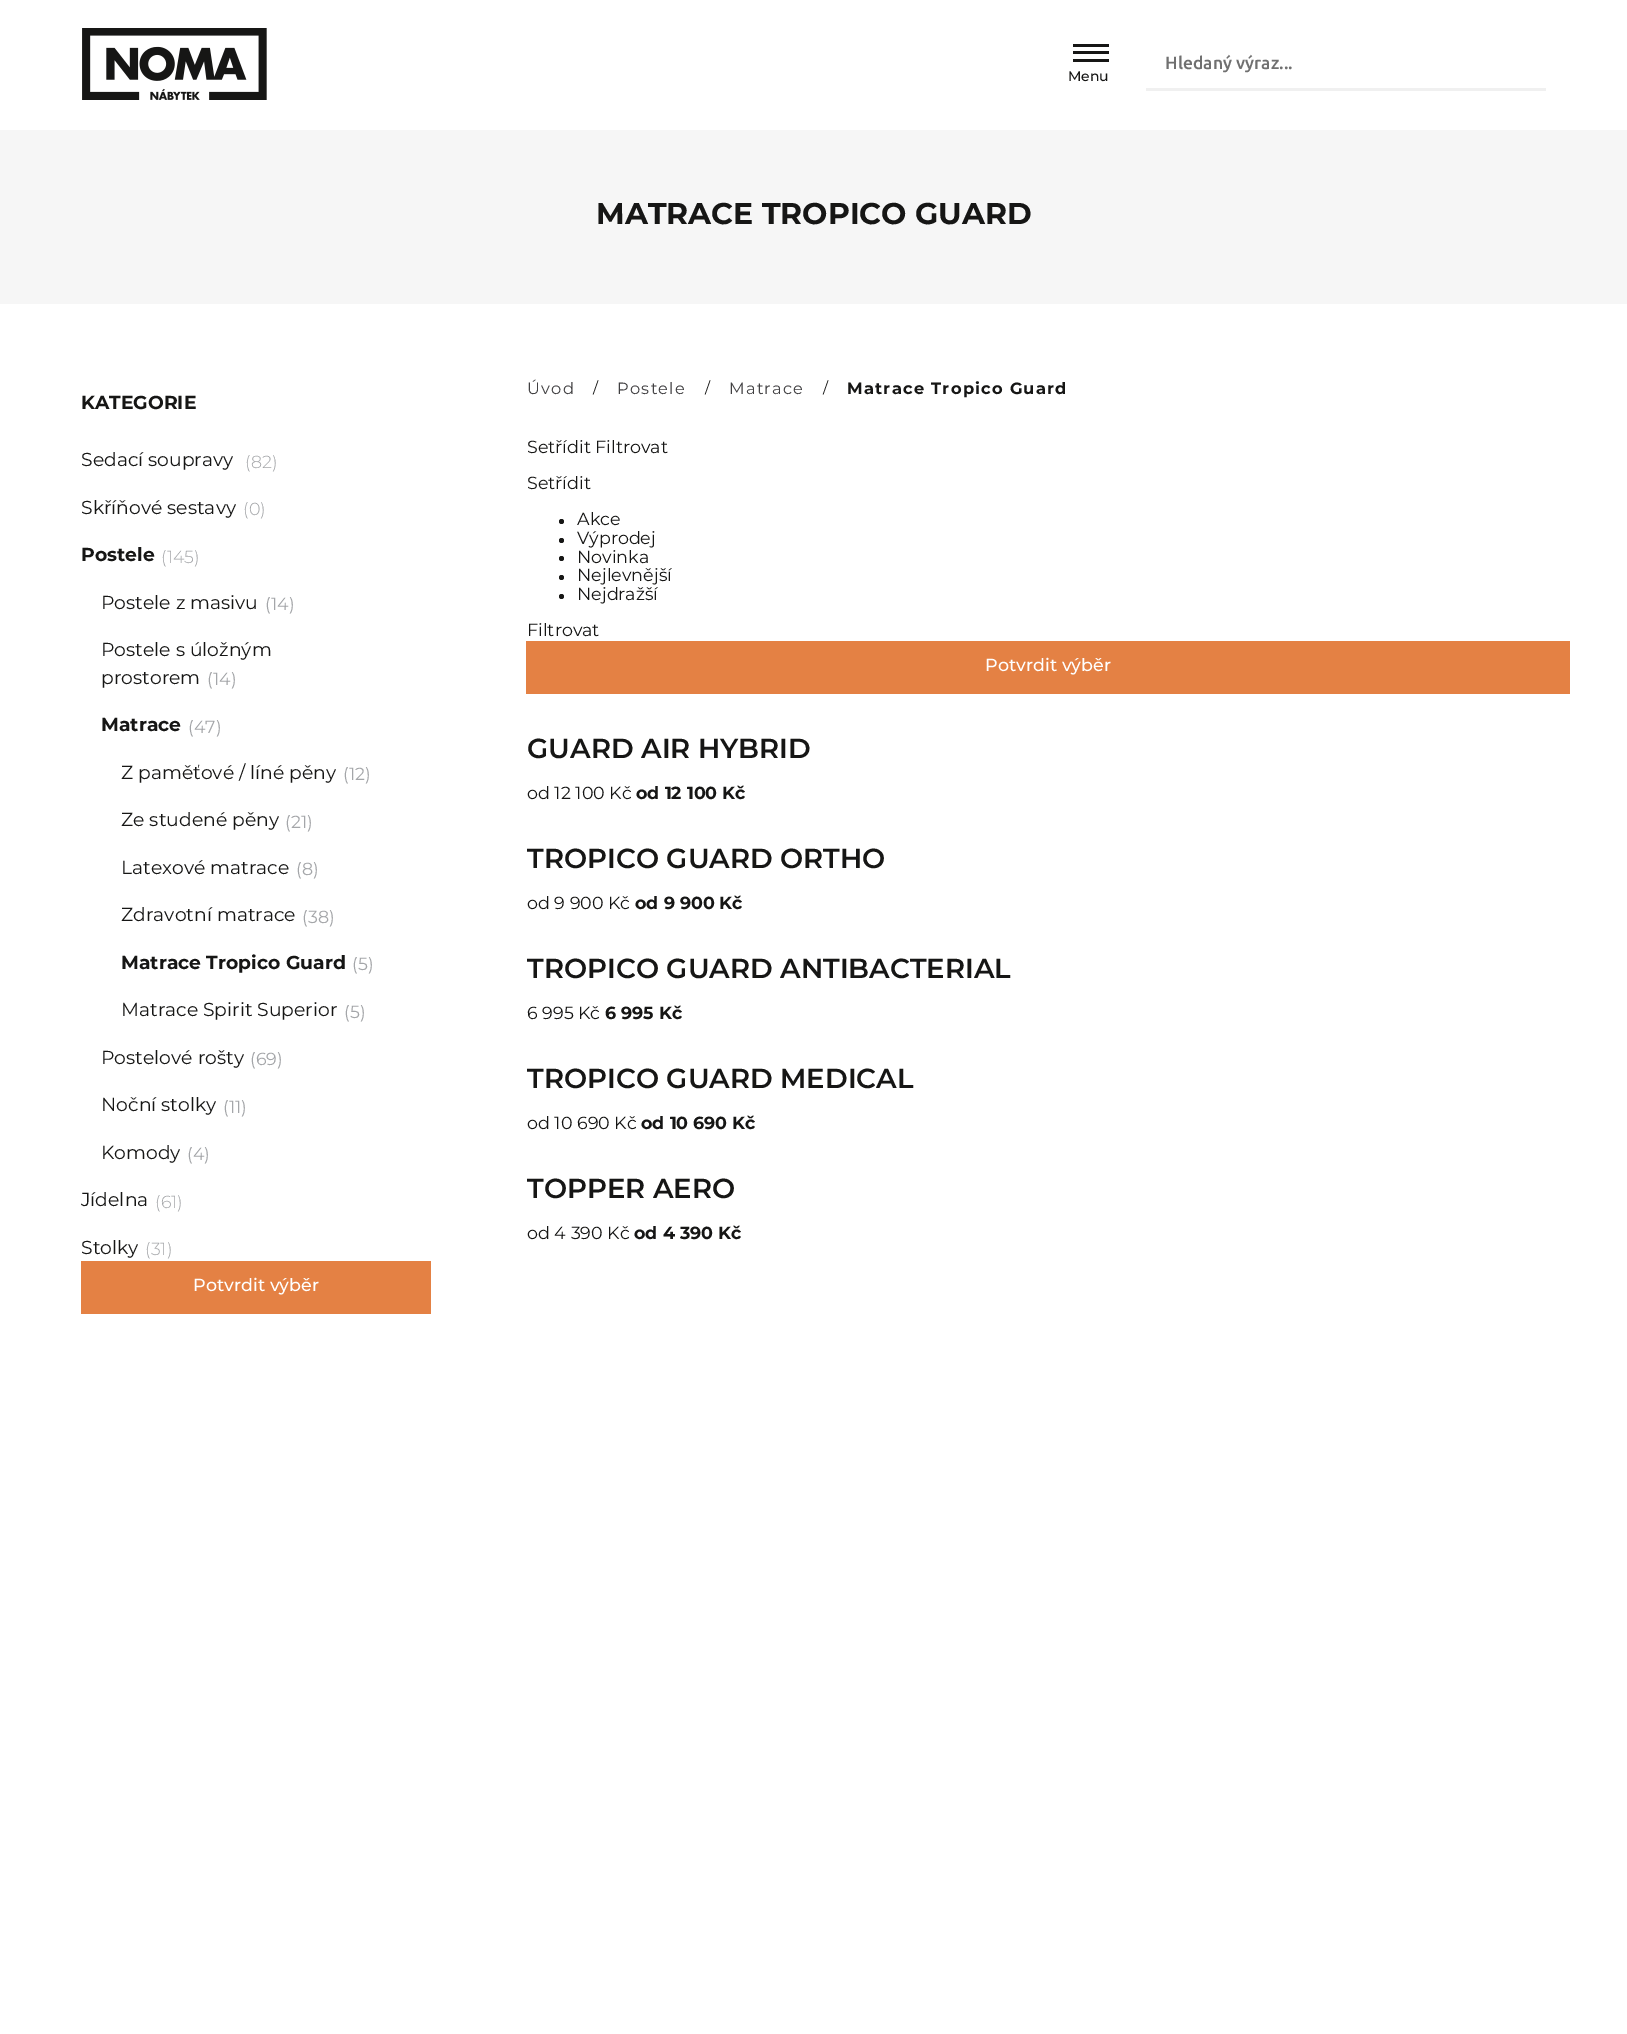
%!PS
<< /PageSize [1627 2034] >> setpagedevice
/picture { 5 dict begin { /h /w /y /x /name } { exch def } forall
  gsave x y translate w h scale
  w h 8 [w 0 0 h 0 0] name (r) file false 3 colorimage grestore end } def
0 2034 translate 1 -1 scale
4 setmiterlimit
1 setgray
0 0 1627 2034 rectfill
(img1.rgb) 82 28 185 72 picture
0.941 setgray
1146 88 400 3 rectfill
/Ubuntu-Medium [17.5 0 0 -17.5 0 0] selectfont
0.439 setgray
1165 69 moveto (Hledaný výraz...) show
0.086 0.086 0.082 setrgbcolor
1073 51 36 3 rectfill
1073 44 36 3 rectfill
1073 59 36 3 rectfill
/Montserrat-Medium [14 0 0 -14 0 0] selectfont
1068 81 moveto (Menu) show
0.965 setgray
0 130 1627 174 rectfill
/Montserrat-Bold [30 0 0 -30 0 0] selectfont
0.086 0.086 0.082 setrgbcolor
596 224 moveto (MATRACE TROPICO GUARD) show
/Montserrat-Regular [16.25 0 0 -16.25 0 0] selectfont
0.255 0.251 0.259 setrgbcolor
527 394 moveto 1.25 0 (Úvod) ashow
/Montserrat-Regular [15 0 0 -15 0 0] selectfont
0.086 0.086 0.082 setrgbcolor
593 393 moveto (/) show
/Montserrat-Regular [16.25 0 0 -16.25 0 0] selectfont
0.255 0.251 0.259 setrgbcolor
617 394 moveto 1.25 0 (Postele) ashow
/Montserrat-Regular [15 0 0 -15 0 0] selectfont
0.086 0.086 0.082 setrgbcolor
705 393 moveto (/) show
/Montserrat-Regular [16.25 0 0 -16.25 0 0] selectfont
0.255 0.251 0.259 setrgbcolor
729 394 moveto 1.25 0 (Matrace) ashow
/Montserrat-Regular [15 0 0 -15 0 0] selectfont
0.086 0.086 0.082 setrgbcolor
823 393 moveto (/) show
/Montserrat-Bold [16.25 0 0 -16.25 0 0] selectfont
847 394 moveto 1.25 0 (Matrace Tropico Guard) ashow
/Montserrat-Bold [18.75 0 0 -18.75 0 0] selectfont
81 409 moveto (KATEGORIE) show
/Montserrat-Regular [18.75 0 0 -18.75 0 0] selectfont
81 466 moveto (Sedací soupravy) show
/Montserrat-Light [17.5 0 0 -17.5 0 0] selectfont
0.643 0.651 0.663 setrgbcolor
245 468 moveto (\(82\)) show
/Montserrat-Regular [18.75 0 0 -18.75 0 0] selectfont
0.086 0.086 0.082 setrgbcolor
81 514 moveto (Skříňové sestavy) show
/Montserrat-Light [17.5 0 0 -17.5 0 0] selectfont
0.643 0.651 0.663 setrgbcolor
243 515 moveto (\(0\)) show
/Montserrat-Bold [18.75 0 0 -18.75 0 0] selectfont
0.086 0.086 0.082 setrgbcolor
81 561 moveto (Postele) show
/Montserrat-Light [17.5 0 0 -17.5 0 0] selectfont
0.643 0.651 0.663 setrgbcolor
161 563 moveto (\(145\)) show
/Montserrat-Regular [18.75 0 0 -18.75 0 0] selectfont
0.086 0.086 0.082 setrgbcolor
101 609 moveto (Postele z masivu) show
/Montserrat-Regular [17.5 0 0 -17.5 0 0] selectfont
0.643 0.651 0.663 setrgbcolor
265 610 moveto (\(14\)) show
/Montserrat-Regular [18.75 0 0 -18.75 0 0] selectfont
0.086 0.086 0.082 setrgbcolor
101 656 moveto (Postele s úložným) show
101 684 moveto (prostorem) show
/Montserrat-Regular [17.5 0 0 -17.5 0 0] selectfont
0.643 0.651 0.663 setrgbcolor
207 685 moveto (\(14\)) show
/Montserrat-Bold [18.75 0 0 -18.75 0 0] selectfont
0.086 0.086 0.082 setrgbcolor
101 731 moveto (Matrace) show
/Montserrat-Regular [17.5 0 0 -17.5 0 0] selectfont
0.643 0.651 0.663 setrgbcolor
188 733 moveto (\(47\)) show
/Montserrat-Regular [18.75 0 0 -18.75 0 0] selectfont
0.086 0.086 0.082 setrgbcolor
121 779 moveto (Z paměťové / líné pěny) show
/Montserrat-Regular [17.5 0 0 -17.5 0 0] selectfont
0.643 0.651 0.663 setrgbcolor
343 780 moveto (\(12\)) show
/Montserrat-Regular [18.75 0 0 -18.75 0 0] selectfont
0.086 0.086 0.082 setrgbcolor
121 826 moveto (Ze studené pěny) show
/Montserrat-Regular [17.5 0 0 -17.5 0 0] selectfont
0.643 0.651 0.663 setrgbcolor
285 828 moveto (\(21\)) show
/Montserrat-Regular [18.75 0 0 -18.75 0 0] selectfont
0.086 0.086 0.082 setrgbcolor
121 874 moveto (Latexové matrace) show
/Montserrat-Regular [17.5 0 0 -17.5 0 0] selectfont
0.643 0.651 0.663 setrgbcolor
296 875 moveto (\(8\)) show
/Montserrat-Regular [18.75 0 0 -18.75 0 0] selectfont
0.086 0.086 0.082 setrgbcolor
121 921 moveto (Zdravotní matrace) show
/Montserrat-Regular [17.5 0 0 -17.5 0 0] selectfont
0.643 0.651 0.663 setrgbcolor
302 923 moveto (\(38\)) show
/Montserrat-Bold [18.75 0 0 -18.75 0 0] selectfont
0.086 0.086 0.082 setrgbcolor
121 969 moveto (Matrace Tropico Guard) show
/Montserrat-Regular [17.5 0 0 -17.5 0 0] selectfont
0.643 0.651 0.663 setrgbcolor
352 970 moveto (\(5\)) show
/Montserrat-Regular [18.75 0 0 -18.75 0 0] selectfont
0.086 0.086 0.082 setrgbcolor
121 1016 moveto (Matrace Spirit Superior) show
/Montserrat-Regular [17.5 0 0 -17.5 0 0] selectfont
0.643 0.651 0.663 setrgbcolor
344 1018 moveto (\(5\)) show
/Montserrat-Regular [18.75 0 0 -18.75 0 0] selectfont
0.086 0.086 0.082 setrgbcolor
101 1064 moveto (Postelové rošty) show
/Montserrat-Regular [17.5 0 0 -17.5 0 0] selectfont
0.643 0.651 0.663 setrgbcolor
250 1065 moveto (\(69\)) show
/Montserrat-Regular [18.75 0 0 -18.75 0 0] selectfont
0.086 0.086 0.082 setrgbcolor
101 1111 moveto (Noční stolky) show
/Montserrat-Regular [17.5 0 0 -17.5 0 0] selectfont
0.643 0.651 0.663 setrgbcolor
223 1113 moveto (\(11\)) show
/Montserrat-Regular [18.75 0 0 -18.75 0 0] selectfont
0.086 0.086 0.082 setrgbcolor
101 1159 moveto (Komody) show
/Montserrat-Regular [17.5 0 0 -17.5 0 0] selectfont
0.643 0.651 0.663 setrgbcolor
187 1160 moveto (\(4\)) show
/Montserrat-Regular [18.75 0 0 -18.75 0 0] selectfont
0.086 0.086 0.082 setrgbcolor
81 1206 moveto (Jídelna) show
/Montserrat-Light [17.5 0 0 -17.5 0 0] selectfont
0.643 0.651 0.663 setrgbcolor
155 1208 moveto (\(61\)) show
/Montserrat-Regular [18.75 0 0 -18.75 0 0] selectfont
0.086 0.086 0.082 setrgbcolor
81 1254 moveto (Stolky) show
/Montserrat-Light [17.5 0 0 -17.5 0 0] selectfont
0.643 0.651 0.663 setrgbcolor
145 1255 moveto (\(31\)) show
0.894 0.506 0.267 setrgbcolor
81 1261 350 53 rectfill
/Montserrat-Medium [17.5 0 0 -17.5 0 0] selectfont
1 setgray
193 1291 moveto (Potvrdit výběr) show
/Montserrat-Regular [17.5 0 0 -17.5 0 0] selectfont
0.086 0.086 0.082 setrgbcolor
527 453 moveto (Setřídit Filtrovat) show
527 489 moveto (Setřídit) show
newpath 561.5 521.5 2.5 0 360 arc closepath fill
577 525 moveto (Akce) show
newpath 561.5 540.5 2.5 0 360 arc closepath fill
577 544 moveto (Výprodej) show
newpath 561.5 558.5 2.5 0 360 arc closepath fill
577 563 moveto (Novinka) show
newpath 561.5 577.5 2.5 0 360 arc closepath fill
577 581 moveto (Nejlevnější) show
newpath 561.5 596.5 2.5 0 360 arc closepath fill
577 600 moveto (Nejdražší) show
527 636 moveto (Filtrovat) show
0.894 0.506 0.267 setrgbcolor
526 641 1044 53 rectfill
/Montserrat-Medium [17.5 0 0 -17.5 0 0] selectfont
1 setgray
985 671 moveto (Potvrdit výběr) show
/Montserrat-SemiBold [27.5 0 0 -27.5 0 0] selectfont
0.086 0.086 0.082 setrgbcolor
527 758 moveto (GUARD AIR HYBRID) show
/Montserrat-Regular [17.5 0 0 -17.5 0 0] selectfont
527 799 moveto (od 12 100 Kč) show
/Montserrat-Bold [17.5 0 0 -17.5 0 0] selectfont
636 799 moveto (od 12 100 Kč) show
/Montserrat-SemiBold [27.5 0 0 -27.5 0 0] selectfont
527 868 moveto (TROPICO GUARD ORTHO) show
/Montserrat-Regular [17.5 0 0 -17.5 0 0] selectfont
527 909 moveto (od 9 900 Kč) show
/Montserrat-Bold [17.5 0 0 -17.5 0 0] selectfont
635 909 moveto (od 9 900 Kč) show
/Montserrat-SemiBold [27.5 0 0 -27.5 0 0] selectfont
527 978 moveto (TROPICO GUARD ANTIBACTERIAL) show
/Montserrat-Regular [17.5 0 0 -17.5 0 0] selectfont
527 1019 moveto (6 995 Kč) show
/Montserrat-Bold [17.5 0 0 -17.5 0 0] selectfont
605 1019 moveto (6 995 Kč) show
/Montserrat-SemiBold [27.5 0 0 -27.5 0 0] selectfont
527 1088 moveto (TROPICO GUARD MEDICAL) show
/Montserrat-Regular [17.5 0 0 -17.5 0 0] selectfont
527 1129 moveto (od 10 690 Kč) show
/Montserrat-Bold [17.5 0 0 -17.5 0 0] selectfont
641 1129 moveto (od 10 690 Kč) show
/Montserrat-SemiBold [27.5 0 0 -27.5 0 0] selectfont
527 1198 moveto (TOPPER AERO) show
/Montserrat-Regular [17.5 0 0 -17.5 0 0] selectfont
527 1239 moveto (od 4 390 Kč) show
/Montserrat-Bold [17.5 0 0 -17.5 0 0] selectfont
634 1239 moveto (od 4 390 Kč) show
showpage
